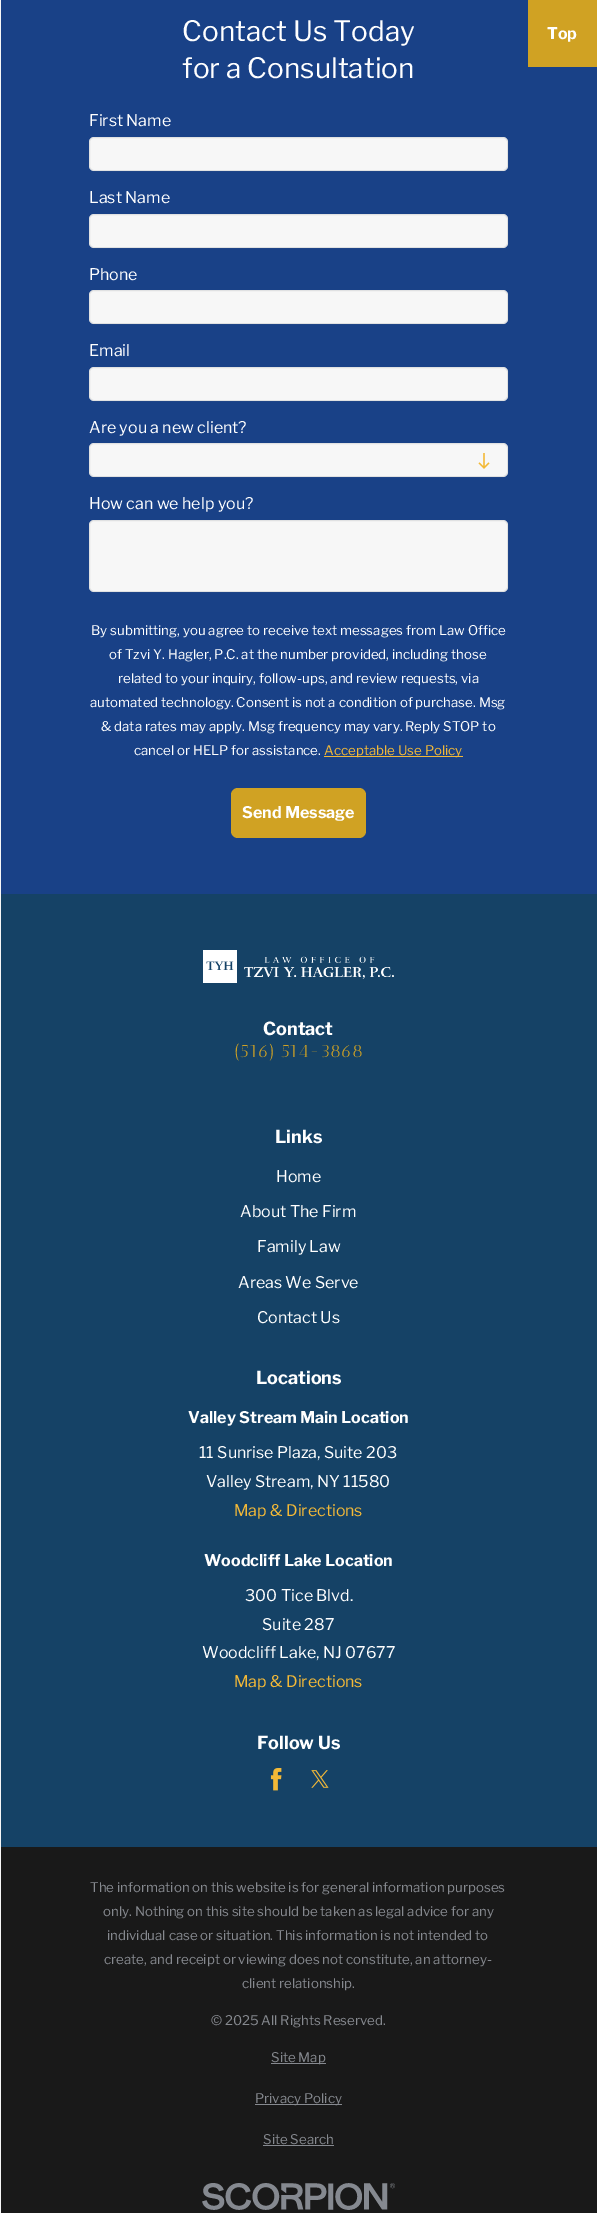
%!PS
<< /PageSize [597 2213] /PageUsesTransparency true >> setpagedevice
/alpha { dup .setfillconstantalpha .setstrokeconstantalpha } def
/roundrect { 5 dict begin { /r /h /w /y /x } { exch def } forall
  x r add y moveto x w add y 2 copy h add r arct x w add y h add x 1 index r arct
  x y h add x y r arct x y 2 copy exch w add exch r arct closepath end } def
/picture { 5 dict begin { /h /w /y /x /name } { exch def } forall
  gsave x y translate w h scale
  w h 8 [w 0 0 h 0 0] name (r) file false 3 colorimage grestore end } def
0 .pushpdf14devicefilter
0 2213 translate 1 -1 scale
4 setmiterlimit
0.098 0.255 0.529 setrgbcolor
0 0 597 2213 rectfill
/LibreFranklin-Regular [28 0 0 -28 0 0] selectfont
1 setgray
182 41 moveto (Contact Us Today) show
182 78 moveto (for a Consultation) show
/LibreFranklin-Regular [16 0 0 -16 0 0] selectfont
89 126 moveto (First Name) show
0.969 setgray
89 137 419 34 5 roundrect fill
0.2 alpha
0.525 0.537 0.561 setrgbcolor
89.5 137.5 418 33 4.5 roundrect stroke
1 alpha
1 setgray
89 203 moveto (Last Name) show
0.969 setgray
89 214 419 34 5 roundrect fill
0.2 alpha
0.525 0.537 0.561 setrgbcolor
89.5 214.5 418 33 4.5 roundrect stroke
1 alpha
1 setgray
89 280 moveto (Phone) show
0.969 setgray
89 290 419 34 5 roundrect fill
0.2 alpha
0.525 0.537 0.561 setrgbcolor
89.5 290.5 418 33 4.5 roundrect stroke
1 alpha
1 setgray
89 356 moveto (Email) show
0.969 setgray
89 367 419 34 5 roundrect fill
0.2 alpha
0.525 0.537 0.561 setrgbcolor
89.5 367.5 418 33 4.5 roundrect stroke
1 alpha
1 setgray
89 433 moveto (Are you a new client?) show
0.969 setgray
89 443 419 34 5 roundrect fill
0.2 alpha
0.525 0.537 0.561 setrgbcolor
89.5 443.5 418 33 4.5 roundrect stroke
1 alpha
(img1.rgb) 478 453 12 16 picture
1 setgray
89 509 moveto (How can we help you?) show
0.969 setgray
89 520 419 72 5 roundrect fill
0.2 alpha
0.525 0.537 0.561 setrgbcolor
89.5 520.5 418 71 4.5 roundrect stroke
/LibreFranklin-Regular [13.3 0 0 -13.3 0 0] selectfont
1 alpha
1 setgray
91 635 moveto (By submitting, you agree to receive text messages from Law Office) show
109 659 moveto (of Tzvi Y. Hagler, P.C. at the number provided, including those) show
118 683 moveto (related to your inquiry, follow-ups, and review requests, via) show
90 707 moveto (automated technology. Consent is not a condition of purchase. Msg) show
101 731 moveto (& data rates may apply. Msg frequency may vary. Reply STOP to) show
134 755 moveto (cancel or HELP for assistance.) show
0.953 0.725 0.216 setrgbcolor
324 756 139 1 rectfill
324 755 moveto (Acceptable Use Policy) show
0.816 0.635 0.137 setrgbcolor
231 788 135 50 7 roundrect fill
/LibreFranklin-Bold [16 0 0 -16 0 0] selectfont
1 setgray
242 818 moveto (Send Message) show
0.969 setgray
0 0 1 2213 rectfill
0.816 0.635 0.137 setrgbcolor
528 0 69 67 rectfill
1 setgray
547 39 moveto (Top) show
0.082 0.259 0.4 setrgbcolor
1 894 596 953 rectfill
(img2.rgb) 203 950 191 33 picture
/LibreFranklin-Bold [18 0 0 -18 0 0] selectfont
1 setgray
263 1035 moveto (Contact) show
/AnticDidone-Regular [18 0 0 -18 0 0] selectfont
0.816 0.635 0.137 setrgbcolor
234 1057 moveto (\(516\) 514-3868) show
/LibreFranklin-Bold [18 0 0 -18 0 0] selectfont
1 setgray
275 1143 moveto (Links) show
/LibreFranklin-Regular [16 0 0 -16 0 0] selectfont
276 1182 moveto (Home) show
240 1217 moveto (About The Firm) show
257 1252 moveto (Family Law) show
238 1288 moveto (Areas We Serve) show
257 1323 moveto (Contact Us) show
/LibreFranklin-Bold [18 0 0 -18 0 0] selectfont
256 1384 moveto (Locations) show
/LibreFranklin-Bold [16 0 0 -16 0 0] selectfont
188 1423 moveto (Valley Stream Main Location) show
/LibreFranklin-Regular [16 0 0 -16 0 0] selectfont
199 1458 moveto (11 Sunrise Plaza, Suite 203) show
206 1487 moveto (Valley Stream, NY 11580) show
0.953 0.725 0.216 setrgbcolor
234 1516 moveto (Map & Directions) show
/LibreFranklin-Bold [16 0 0 -16 0 0] selectfont
1 setgray
204 1566 moveto (Woodcliff Lake Location) show
/LibreFranklin-Regular [16 0 0 -16 0 0] selectfont
245 1601 moveto (300 Tice Blvd.) show
262 1630 moveto (Suite 287) show
202 1658 moveto (Woodcliff Lake, NJ 07677) show
0.953 0.725 0.216 setrgbcolor
234 1687 moveto (Map & Directions) show
/LibreFranklin-Bold [18 0 0 -18 0 0] selectfont
1 setgray
257 1749 moveto (Follow Us) show
(img3.rgb) 270 1768 12 23 picture
(img4.rgb) 311 1770 18 18 picture
0.098 setgray
1 1847 596 366 rectfill
/LibreFranklin-Regular [13.3 0 0 -13.3 0 0] selectfont
0.525 0.537 0.561 setrgbcolor
90 1892 moveto (The information on this website is for general information purposes) show
103 1916 moveto (only. Nothing on this site should be taken as legal advice for any) show
107 1940 moveto (individual case or situation. This information is not intended to) show
104 1964 moveto (create, and receipt or viewing does not constitute, an attorney-) show
242 1988 moveto (client relationship.) show
211 2025 moveto (© 2025 All Rights Reserved.) show
271 2063 55 1 rectfill
271 2062 moveto (Site Map) show
255 2104 87 1 rectfill
255 2103 moveto (Privacy Policy) show
263 2144 moveto (Site Search) show
263 2145 71 1 rectfill
(img5.rgb) 202 2183 193 27 picture
.poppdf14devicefilter showpage
